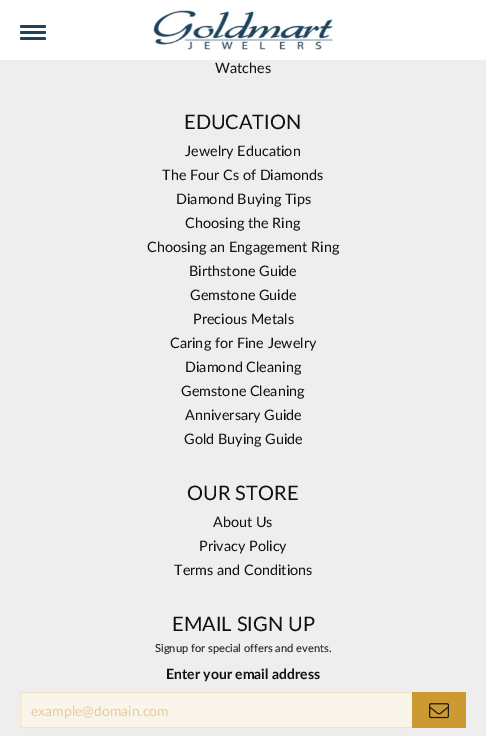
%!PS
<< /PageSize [486 736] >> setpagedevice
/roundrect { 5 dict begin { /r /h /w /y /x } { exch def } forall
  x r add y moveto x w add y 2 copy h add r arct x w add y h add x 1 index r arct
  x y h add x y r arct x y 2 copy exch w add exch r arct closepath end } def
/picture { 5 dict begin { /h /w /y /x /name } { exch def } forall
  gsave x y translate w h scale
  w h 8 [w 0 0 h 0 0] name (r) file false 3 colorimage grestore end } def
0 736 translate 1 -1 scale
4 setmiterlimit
0.933 setgray
0 0 486 736 rectfill
1 setgray
0 0 486 60 rectfill
0.118 0.263 0.369 setrgbcolor
20 25 26 3 1.5 roundrect fill
20 31 26 3 1.5 roundrect fill
20 37 26 3 1.5 roundrect fill
(img1.rgb) 153 10 180 40 picture
/Lato-Regular [14.4 0 0 -14.4 0 0] selectfont
0.067 setgray
215 73 moveto (Watches) show
/Lato-Regular [20 0 0 -20 0 0] selectfont
184 129 moveto (EDUCATION) show
/Lato-Regular [14.4 0 0 -14.4 0 0] selectfont
185 156 moveto (Jewelry Education) show
162 180 moveto (The Four Cs of Diamonds) show
176 204 moveto (Diamond Buying Tips) show
185 228 moveto (Choosing the Ring) show
147 252 moveto (Choosing an Engagement Ring) show
189 276 moveto (Birthstone Guide) show
190 300 moveto (Gemstone Guide) show
193 324 moveto (Precious Metals) show
170 348 moveto (Caring for Fine Jewelry) show
185 372 moveto (Diamond Cleaning) show
181 396 moveto (Gemstone Cleaning) show
185 420 moveto (Anniversary Guide) show
184 444 moveto (Gold Buying Guide) show
/Lato-Regular [20 0 0 -20 0 0] selectfont
187 500 moveto (OUR STORE) show
/Lato-Regular [14.4 0 0 -14.4 0 0] selectfont
213 527 moveto (About Us) show
199 551 moveto (Privacy Policy) show
174 575 moveto (Terms and Conditions) show
/Lato-Regular [20 0 0 -20 0 0] selectfont
172 631 moveto (EMAIL SIGN UP) show
/Lato-Regular [11.1 0 0 -11.1 0 0] selectfont
155 652 moveto (Signup for special offers and events.) show
/Lato-Bold [14 0 0 -14 0 0] selectfont
166 679 moveto (Enter your email address) show
0.98 0.961 0.922 setrgbcolor
newpath 20.5 692.5 moveto 412.5 692.5 lineto 412.5 727.5 lineto 20.5 727.5 lineto closepath gsave fill grestore
0.949 0.898 0.8 setrgbcolor
stroke
/Lato-Regular [14 0 0 -14 0 0] selectfont
0.902 0.804 0.604 setrgbcolor
31 716 moveto (example@domain.com) show
0.8 0.6 0.2 setrgbcolor
412 692 54 36 rectfill
(img2.rgb) 429 703 20 16 picture
showpage
